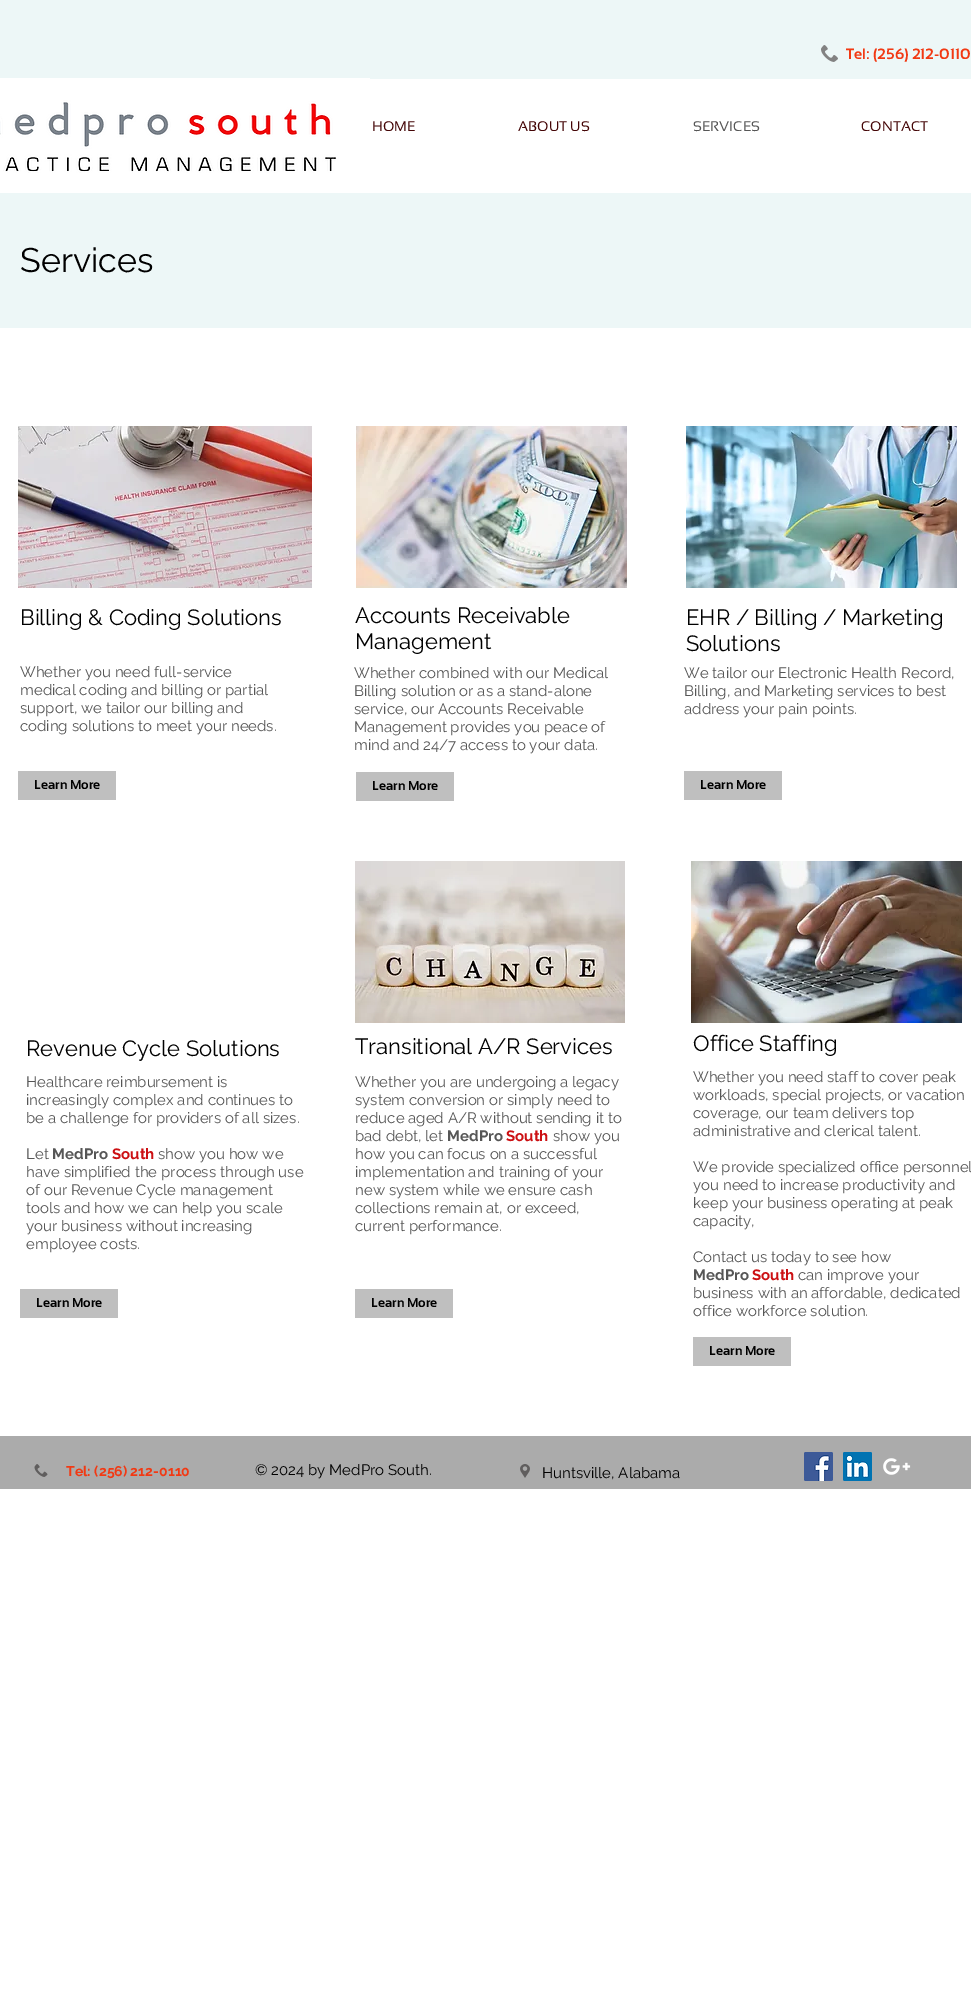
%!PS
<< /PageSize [971 2016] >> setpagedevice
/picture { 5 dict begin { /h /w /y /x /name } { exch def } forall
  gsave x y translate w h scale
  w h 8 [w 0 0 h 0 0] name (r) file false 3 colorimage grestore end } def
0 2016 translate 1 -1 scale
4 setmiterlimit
1 setgray
0 0 971 2016 rectfill
0.929 0.969 0.969 setrgbcolor
0 0 971 79 rectfill
(img1.rgb) 821 45 17 17 picture
/Sansation-Bold [15 0 0 -15 0 0] selectfont
0.949 0.224 0.075 setrgbcolor
846 59 moveto (Tel: \(256\) 212-0110) show
(img2.rgb) 0 78 370 95 picture
/Sansation-Regular [14 0 0 -14 0 0] selectfont
0.267 0.02 0.024 setrgbcolor
372 131 moveto (HOME) show
518 131 moveto (ABOUT US) show
0.337 setgray
693 131 moveto (SERVICES) show
0.267 0.02 0.024 setrgbcolor
861 131 moveto (CONTACT) show
0.929 0.969 0.969 setrgbcolor
0 193 971 135 rectfill
/Raleway-Regular [34 0 0 -34 0 0] selectfont
0 setgray
20 272 moveto (Services) show
(img3.rgb) 18 426 294 162 picture
/Raleway-Regular [22 0 0 -22 0 0] selectfont
20 625 moveto (Billing & Coding Solutions) show
/Raleway-Regular [15 0 0 -15 0 0] selectfont
0.337 setgray
20 677 moveto (Whether you need full-service) show
20 695 moveto (medical coding and billing or partial) show
20 713 moveto (support, we tailor our billing and) show
20 731 moveto (coding solutions to meet your needs.) show
0.749 setgray
18 771 98 29 rectfill
/Sansation-Bold [13 0 0 -13 0 0] selectfont
0 setgray
34 789 moveto (Learn More) show
(img4.rgb) 356 426 271 162 picture
/Raleway-Regular [22 0 0 -22 0 0] selectfont
355 623 moveto (Accounts Receivable) show
355 649 moveto (Management) show
/Raleway-Regular [15 0 0 -15 0 0] selectfont
0.337 setgray
354 678 moveto (Whether combined with our Medical) show
354 696 moveto (Billing solution or as a stand-alone) show
354 714 moveto (service, our Accounts Receivable) show
354 732 moveto (Management provides you peace of) show
354 750 moveto (mind and 24/7 access to your data.) show
0.749 setgray
356 772 98 29 rectfill
/Sansation-Bold [13 0 0 -13 0 0] selectfont
0 setgray
372 790 moveto (Learn More) show
(img5.rgb) 686 426 271 162 picture
/Raleway-Regular [22 0 0 -22 0 0] selectfont
686 625 moveto (EHR / Billing / Marketing) show
686 651 moveto (Solutions) show
/Raleway-Regular [15 0 0 -15 0 0] selectfont
0.337 setgray
684 678 moveto (We tailor our Electronic Health Record,) show
684 696 moveto (Billing, and Marketing services to best) show
684 714 moveto (address your pain points.) show
0.749 setgray
684 771 98 29 rectfill
/Sansation-Bold [13 0 0 -13 0 0] selectfont
0 setgray
700 789 moveto (Learn More) show
/Raleway-Regular [22 0 0 -22 0 0] selectfont
26 1056 moveto (Revenue Cycle Solutions) show
(img6.rgb) 355 861 270 162 picture
355 1054 moveto (Transitional A/R Services) show
/Raleway-Regular [15 0 0 -15 0 0] selectfont
0.337 setgray
355 1087 moveto (Whether you are undergoing a legacy) show
355 1105 moveto (system conversion or simply need to) show
355 1123 moveto (reduce aged A/R without sending it to) show
355 1141 moveto (bad debt, let) show
/Raleway-Bold [15 0 0 -15 0 0] selectfont
447 1141 moveto (MedPro) show
0.8 0.063 0.075 setrgbcolor
506 1141 moveto (South) show
/Raleway-Regular [15 0 0 -15 0 0] selectfont
0.337 setgray
553 1141 moveto (show you) show
355 1159 moveto (how you can focus on a successful) show
355 1177 moveto (implementation and training of your) show
355 1195 moveto (new system while we ensure cash) show
355 1213 moveto (collections remain at, or exceed,) show
355 1231 moveto (current performance.) show
0.749 setgray
355 1289 98 29 rectfill
/Sansation-Bold [13 0 0 -13 0 0] selectfont
0 setgray
371 1307 moveto (Learn More) show
(img7.rgb) 691 861 271 162 picture
/Raleway-Regular [22 0 0 -22 0 0] selectfont
693 1051 moveto (Office Staffing) show
/Raleway-Regular [15 0 0 -15 0 0] selectfont
0.337 setgray
693 1082 moveto (Whether you need staff to cover peak) show
693 1100 moveto (workloads, special projects, or vacation) show
693 1118 moveto (coverage, our team delivers top) show
693 1136 moveto (administrative and clerical talent.) show
693 1172 moveto (We provide specialized office personnel) show
693 1190 moveto (you need to increase productivity and) show
693 1208 moveto (keep your business operating at peak) show
693 1226 moveto (capacity,) show
693 1262 moveto (Contact us today to see how) show
/Raleway-Bold [15 0 0 -15 0 0] selectfont
693 1280 moveto (MedPro) show
0.8 0.063 0.075 setrgbcolor
752 1280 moveto (South) show
/Raleway-Regular [15 0 0 -15 0 0] selectfont
0.337 setgray
798 1280 moveto (can improve your) show
693 1298 moveto (business with an affordable, dedicated) show
693 1316 moveto (office workforce solution.) show
0.749 setgray
693 1337 98 29 rectfill
/Sansation-Bold [13 0 0 -13 0 0] selectfont
0 setgray
709 1355 moveto (Learn More) show
/Raleway-Regular [15 0 0 -15 0 0] selectfont
0.337 setgray
26 1087 moveto (Healthcare reimbursement is) show
26 1105 moveto (increasingly complex and continues to) show
26 1123 moveto (be a challenge for providers of all sizes.) show
26 1159 moveto (Let) show
/Raleway-Bold [15 0 0 -15 0 0] selectfont
52 1159 moveto (MedPro) show
0.8 0.063 0.075 setrgbcolor
112 1159 moveto (South) show
/Raleway-Regular [15 0 0 -15 0 0] selectfont
0.337 setgray
158 1159 moveto (show you how we) show
26 1177 moveto (have simplified the process through use) show
26 1195 moveto (of our Revenue Cycle management) show
26 1213 moveto (tools and how we can help you scale) show
26 1231 moveto (your business without increasing) show
26 1249 moveto (employee costs.) show
0.749 setgray
20 1289 98 29 rectfill
/Sansation-Bold [13 0 0 -13 0 0] selectfont
0 setgray
36 1307 moveto (Learn More) show
0.671 setgray
0 1436 971 53 rectfill
(img8.rgb) 34 1464 14 13 picture
/Raleway-Bold [14 0 0 -14 0 0] selectfont
0.949 0.224 0.075 setrgbcolor
66 1476 moveto (Tel: \(256\) 212-0110) show
/Raleway-Regular [15 0 0 -15 0 0] selectfont
0 setgray
255 1475 moveto (© 2024 by MedPro South.) show
(img9.rgb) 520 1464 10 14 picture
542 1478 moveto (Huntsville, Alabama) show
(img10.rgb) 804 1452 29 29 picture
(img11.rgb) 843 1452 29 29 picture
(img12.rgb) 883 1458 28 17 picture
showpage
